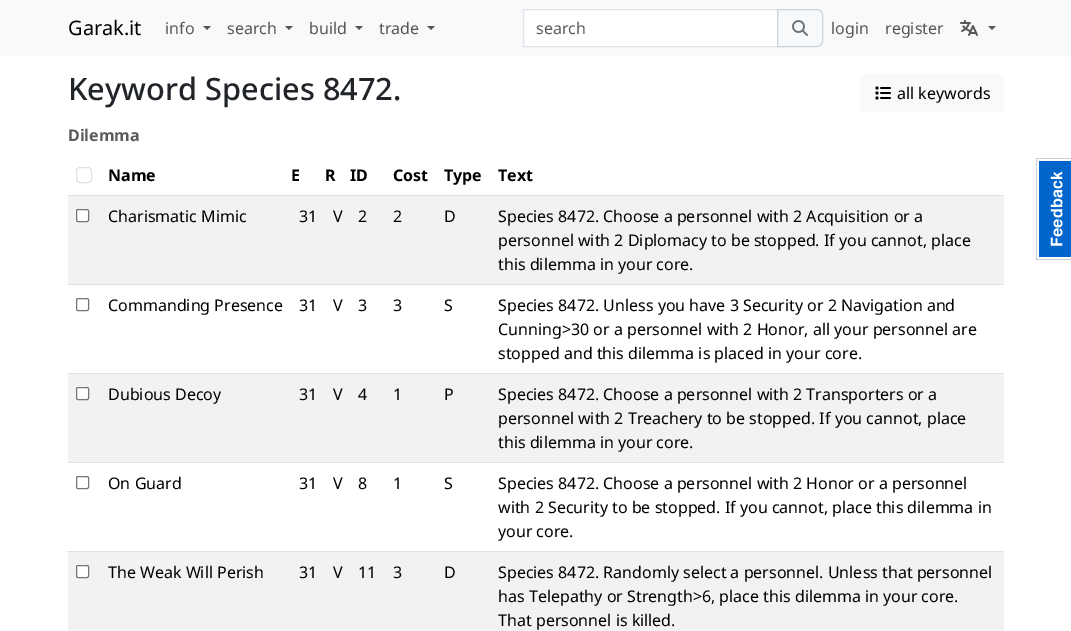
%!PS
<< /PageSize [1071 631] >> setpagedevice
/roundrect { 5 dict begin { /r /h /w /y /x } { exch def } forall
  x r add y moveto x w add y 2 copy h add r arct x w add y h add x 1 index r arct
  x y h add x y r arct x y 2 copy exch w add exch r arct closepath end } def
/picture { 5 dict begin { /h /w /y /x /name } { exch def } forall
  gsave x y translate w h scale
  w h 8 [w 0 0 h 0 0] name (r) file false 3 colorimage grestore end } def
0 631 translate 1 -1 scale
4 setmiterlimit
1 setgray
0 0 1071 631 rectfill
0.973 0.976 0.98 setrgbcolor
0 0 1071 56 rectfill
/NotoSans-Regular [20 0 0 -20 0 0] selectfont
0 setgray
68 35 moveto (Garak.it) show
/NotoSans-Regular [16 0 0 -16 0 0] selectfont
0.341 0.341 0.345 setrgbcolor
165 34 moveto (info) show
newpath 203 26 moveto 211 26 lineto 207 30 lineto closepath fill
227 34 moveto (search) show
newpath 285 26 moveto 293 26 lineto 289 30 lineto closepath fill
309 34 moveto (build) show
newpath 355 26 moveto 363 26 lineto 359 30 lineto closepath fill
379 34 moveto (trade) show
newpath 427 26 moveto 435 26 lineto 431 30 lineto closepath fill
1 setgray
newpath 523.5 9.5 moveto 777.5 9.5 lineto 777.5 46.5 lineto 523.5 46.5 lineto closepath gsave fill grestore
0.871 0.886 0.902 setrgbcolor
stroke
0.349 0.361 0.373 setrgbcolor
536 34 moveto (search) show
0.808 0.831 0.855 setrgbcolor
newpath 777.5 9.5 moveto 817 9.5 lineto 820 9.5 822.5 12 822.5 15 curveto 822.5 41 lineto 822.5 44 820 46.5 817 46.5 curveto 777.5 46.5 lineto closepath stroke
(img1.rgb) 792 20 16 16 picture
0.341 0.341 0.345 setrgbcolor
831 34 moveto (login) show
885 34 moveto (register) show
(img2.rgb) 960 20 18 16 picture
newpath 988 26 moveto 996 26 lineto 992 30 lineto closepath fill
/NotoSans-Medium [30.75 0 0 -30.75 0 0] selectfont
0.129 0.145 0.161 setrgbcolor
68 100 moveto (Keyword Species 8472.) show
0.973 0.976 0.98 setrgbcolor
860 74 144 38 6 roundrect fill
(img3.rgb) 875 86 16 14 picture
/NotoSans-Regular [16 0 0 -16 0 0] selectfont
0 setgray
897 99 moveto (all keywords) show
/NotoSans-Bold [16 0 0 -16 0 0] selectfont
0.349 0.361 0.373 setrgbcolor
68 141 moveto (Dilemma) show
0.871 0.886 0.902 setrgbcolor
76.5 167.5 15 15 3.5 roundrect stroke
0 setgray
108 181 moveto (Name) show
291 181 moveto (E) show
325 181 moveto (R) show
350 181 moveto (ID) show
393 181 moveto (Cost) show
444 181 moveto (Type) show
0.871 0.886 0.902 setrgbcolor
67 195 937 1 rectfill
0 setgray
498 181 moveto (Text) show
0.949 setgray
68 196 936 88 rectfill
1 setgray
76.5 209.5 12 12 1.5 roundrect gsave fill grestore
0.463 setgray
stroke
/NotoSans-Regular [16 0 0 -16 0 0] selectfont
0 setgray
108 222 moveto (Charismatic Mimic) show
299 222 moveto (31) show
333 222 moveto (V) show
358 222 moveto (2) show
393 222 moveto (2) show
444 222 moveto (D) show
0.871 0.886 0.902 setrgbcolor
67 284 937 1 rectfill
0 setgray
498 222 moveto (Species 8472. Choose a personnel with 2 Acquisition or a) show
498 246 moveto (personnel with 2 Diplomacy to be stopped. If you cannot, place) show
498 270 moveto (this dilemma in your core.) show
0.463 setgray
76.5 298.5 12 12 1.5 roundrect stroke
0 setgray
108 311 moveto (Commanding Presence) show
299 311 moveto (31) show
333 311 moveto (V) show
358 311 moveto (3) show
393 311 moveto (3) show
444 311 moveto (S) show
0.871 0.886 0.902 setrgbcolor
67 373 937 1 rectfill
0 setgray
498 311 moveto (Species 8472. Unless you have 3 Security or 2 Navigation and) show
498 335 moveto (Cunning>30 or a personnel with 2 Honor, all your personnel are) show
498 359 moveto (stopped and this dilemma is placed in your core.) show
0.949 setgray
68 374 936 88 rectfill
1 setgray
76.5 387.5 12 12 1.5 roundrect gsave fill grestore
0.463 setgray
stroke
0 setgray
108 400 moveto (Dubious Decoy) show
299 400 moveto (31) show
333 400 moveto (V) show
358 400 moveto (4) show
393 400 moveto (1) show
444 400 moveto (P) show
0.871 0.886 0.902 setrgbcolor
67 462 937 1 rectfill
0 setgray
498 400 moveto (Species 8472. Choose a personnel with 2 Transporters or a) show
498 424 moveto (personnel with 2 Treachery to be stopped. If you cannot, place) show
498 448 moveto (this dilemma in your core.) show
0.463 setgray
76.5 476.5 12 12 1.5 roundrect stroke
0 setgray
108 489 moveto (On Guard) show
299 489 moveto (31) show
333 489 moveto (V) show
358 489 moveto (8) show
393 489 moveto (1) show
444 489 moveto (S) show
0.871 0.886 0.902 setrgbcolor
67 551 937 1 rectfill
0 setgray
498 489 moveto (Species 8472. Choose a personnel with 2 Honor or a personnel) show
498 513 moveto (with 2 Security to be stopped. If you cannot, place this dilemma in) show
498 537 moveto (your core.) show
0.949 setgray
68 552 936 79 rectfill
1 setgray
76.5 565.5 12 12 1.5 roundrect gsave fill grestore
0.463 setgray
stroke
0 setgray
108 578 moveto (The Weak Will Perish) show
299 578 moveto (31) show
333 578 moveto (V) show
358 578 moveto (11) show
393 578 moveto (3) show
444 578 moveto (D) show
498 578 moveto (Species 8472. Randomly select a personnel. Unless that personnel) show
498 602 moveto (has Telepathy or Strength>6, place this dilemma in your core.) show
498 626 moveto (That personnel is killed.) show
0 0.4 0.8 setrgbcolor
1039 161 32 96 rectfill
(img4.rgb) 1036 158 35 102 picture
showpage
